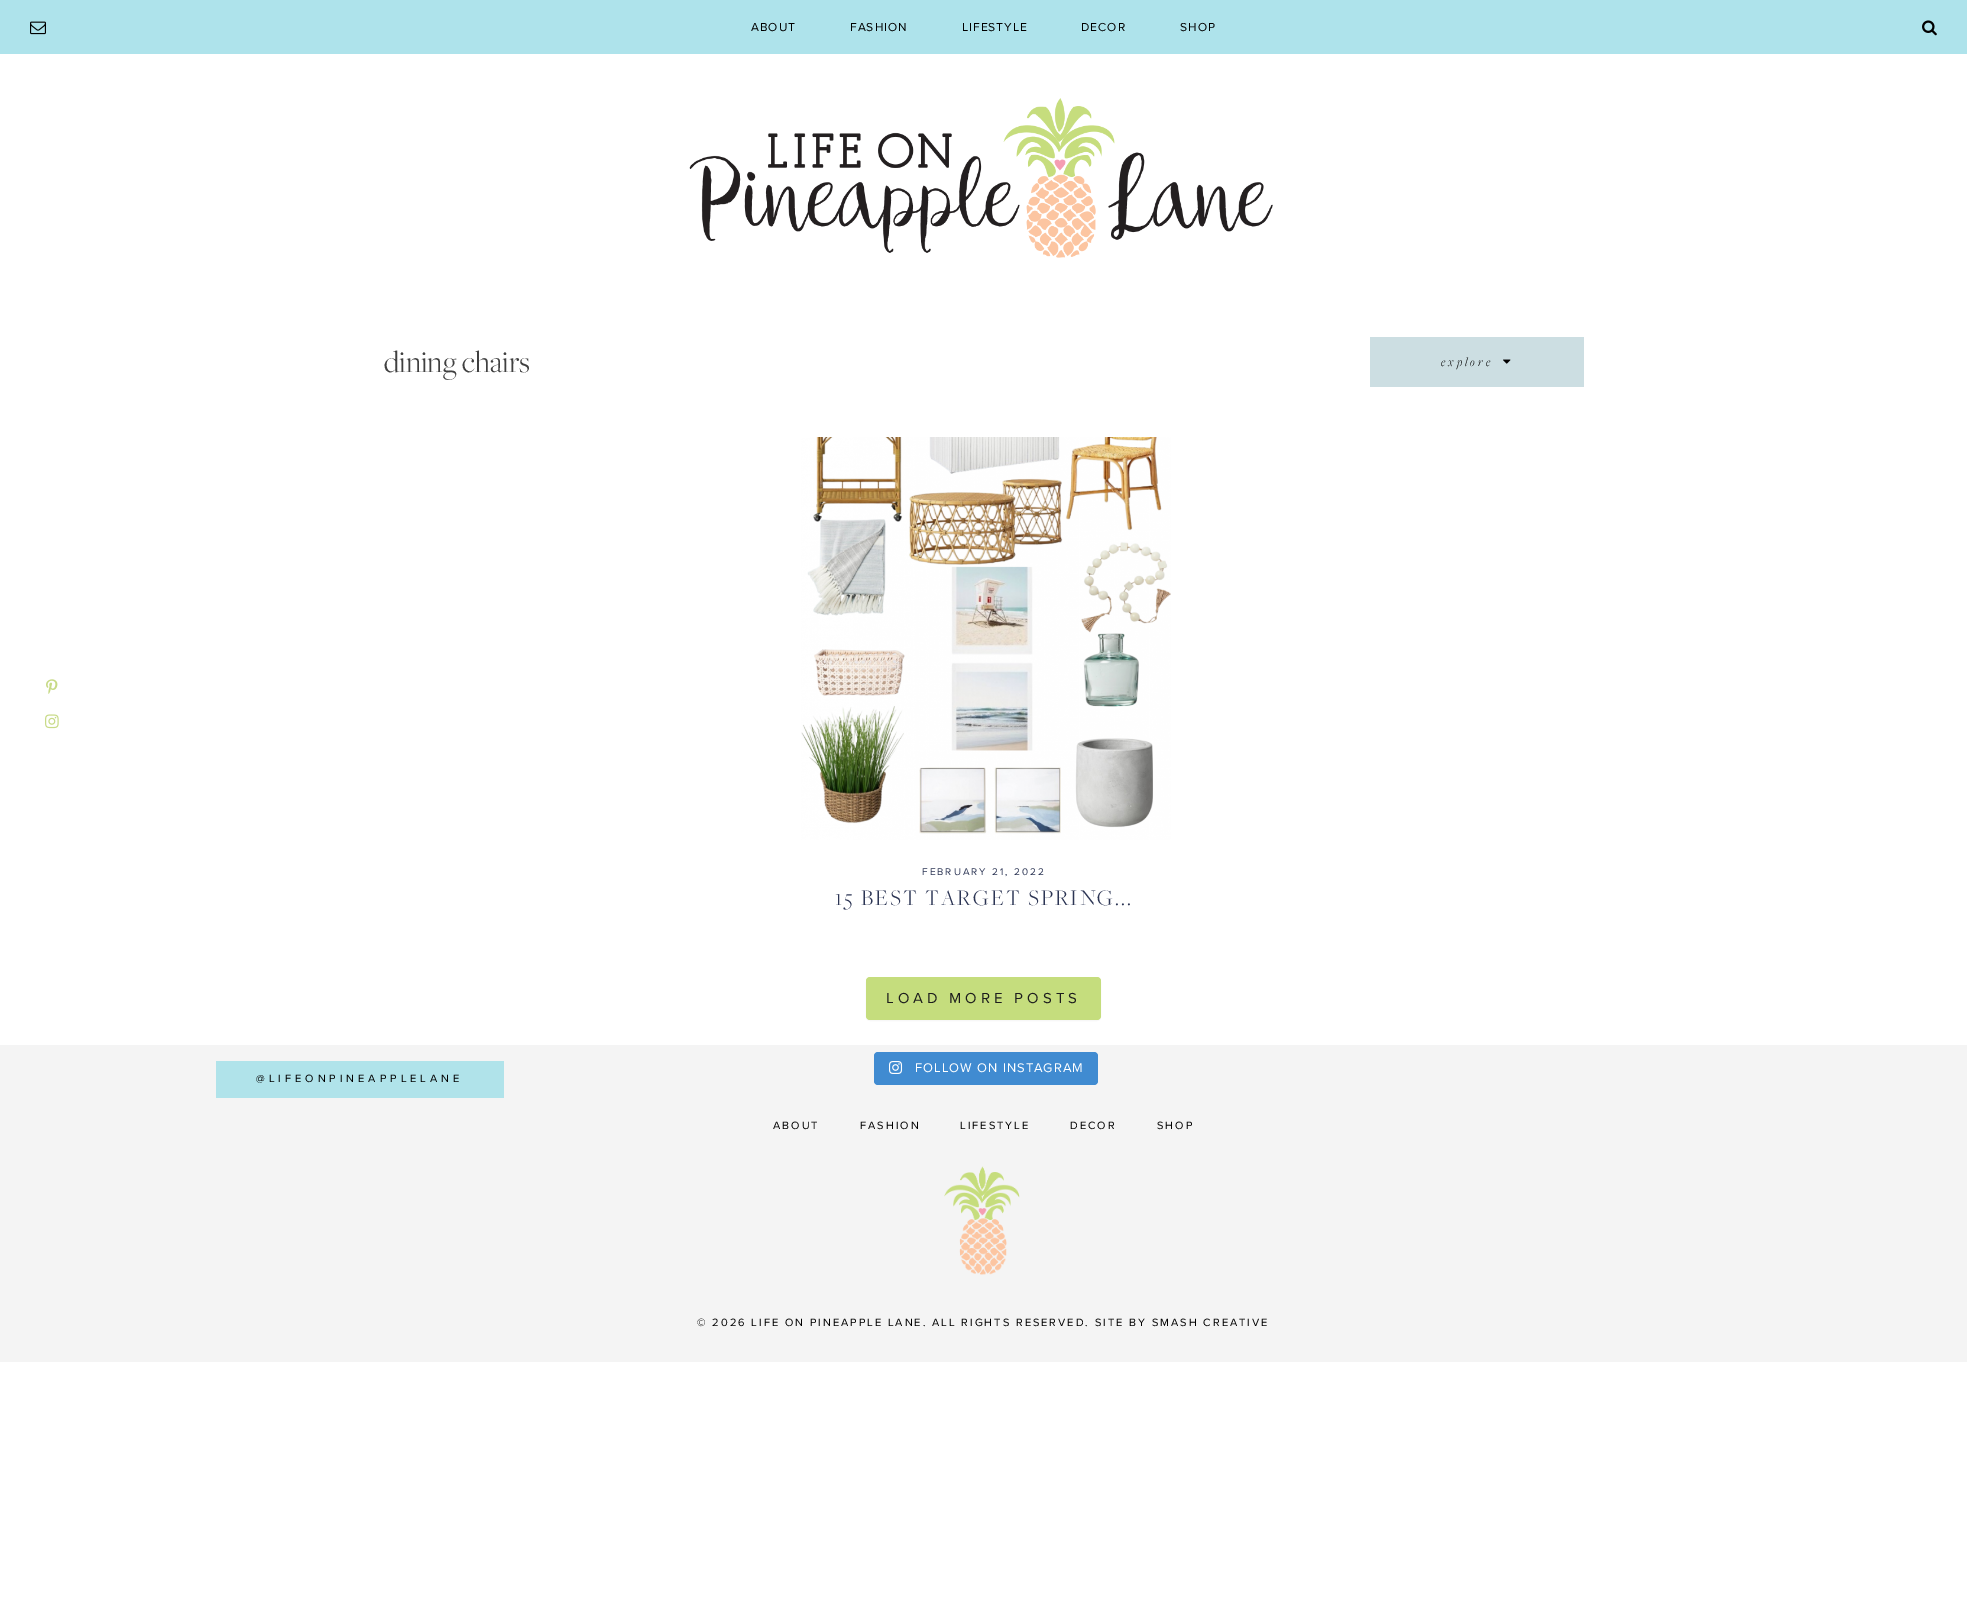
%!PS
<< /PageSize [1967 1597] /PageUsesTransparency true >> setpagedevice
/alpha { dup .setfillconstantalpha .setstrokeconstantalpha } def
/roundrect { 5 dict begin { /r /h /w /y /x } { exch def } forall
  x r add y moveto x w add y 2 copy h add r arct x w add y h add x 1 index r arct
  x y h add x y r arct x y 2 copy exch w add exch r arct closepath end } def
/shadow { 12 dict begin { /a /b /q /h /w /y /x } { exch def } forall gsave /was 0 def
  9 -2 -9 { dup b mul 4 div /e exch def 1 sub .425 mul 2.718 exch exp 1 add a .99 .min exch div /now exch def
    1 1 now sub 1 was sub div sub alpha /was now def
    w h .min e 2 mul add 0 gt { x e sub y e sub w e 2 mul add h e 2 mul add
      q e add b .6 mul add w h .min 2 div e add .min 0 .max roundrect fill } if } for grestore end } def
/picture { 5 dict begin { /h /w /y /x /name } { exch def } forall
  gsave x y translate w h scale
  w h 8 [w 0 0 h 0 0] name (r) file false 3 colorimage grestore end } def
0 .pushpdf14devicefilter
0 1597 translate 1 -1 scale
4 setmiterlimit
1 setgray
0 0 1967 1597 rectfill
(img1.rgb) 46 679 12 15 picture
(img2.rgb) 45 714 14 15 picture
0.682 0.89 0.922 setrgbcolor
0 0 1967 54 rectfill
(img3.rgb) 30 21 16 14 picture
/ProximaNova-Regular [12 0 0 -12 0 0] selectfont
0 setgray
751 31 moveto 1 0 (ABOUT) ashow
850 31 moveto 1 0 (FASHION) ashow
962 31 moveto 1 0 (LIFESTYLE) ashow
1081 31 moveto 1 0 (DECOR) ashow
1180 31 moveto 1 0 (SHOP) ashow
(img4.rgb) 1922 20 15 16 picture
(img5.rgb) 689 98 584 160 picture
/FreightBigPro-Light [32 0 0 -32 0 0] selectfont
0.251 setgray
384 372 moveto (dining chairs) show
0.8 0.871 0.886 setrgbcolor
1370 337 214 50 rectfill
/FreightBigPro-LightItalic [13 0 0 -13 0 0] selectfont
0 setgray
1441 366 moveto 3 0 (explore) ashow
(img6.rgb) 1503 359 8 5 picture
(img7.rgb) 801 437 370 403 picture
/ProximaNova-Regular [10 0 0 -10 0 0] selectfont
0.173 0.208 0.329 setrgbcolor
922 875 moveto 2 0 (FEBRUARY 21, 2022) ashow
/FreightBigPro-Light [23 0 0 -23 0 0] selectfont
835 905 moveto 2 0 (15 BEST TARGET SPRING...) ashow
0 setgray
866 978 235 43 4 0.5 0.04 shadow
0.773 0.867 0.49 setrgbcolor
866 977 235 43 4 roundrect fill
/ProximaNova-Regular [15 0 0 -15 0 0] selectfont
0.114 setgray
886 1003 moveto 4 0 (LOAD MORE POSTS) ashow
0.957 setgray
0 1045 1967 317 rectfill
0.251 0.545 0.82 setrgbcolor
874 1052 224 33 4 roundrect fill
(img8.rgb) 889 1061 14 13 picture
/ProximaNova-Regular [13 0 0 -13 0 0] selectfont
1 setgray
915 1072 moveto 1 0 (FOLLOW ON INSTAGRAM) ashow
0.69 0.89 0.918 setrgbcolor
216 1061 288 37 rectfill
/ProximaNova-Regular [11 0 0 -11 0 0] selectfont
0 setgray
256 1082 moveto 4 0 (@LIFEONPINEAPPLELANE) ashow
773 1129 moveto 2 0 (ABOUT) ashow
860 1129 moveto 2 0 (FASHION) ashow
960 1129 moveto 2 0 (LIFESTYLE) ashow
1070 1129 moveto 2 0 (DECOR) ashow
1157 1129 moveto 2 0 (SHOP) ashow
(img9.rgb) 944 1166 76 109 picture
697 1326 moveto 2 0 (© 2026 LIFE ON PINEAPPLE LANE. ALL RIGHTS RESERVED. SITE BY SMASH CREATIVE) ashow
.poppdf14devicefilter showpage
